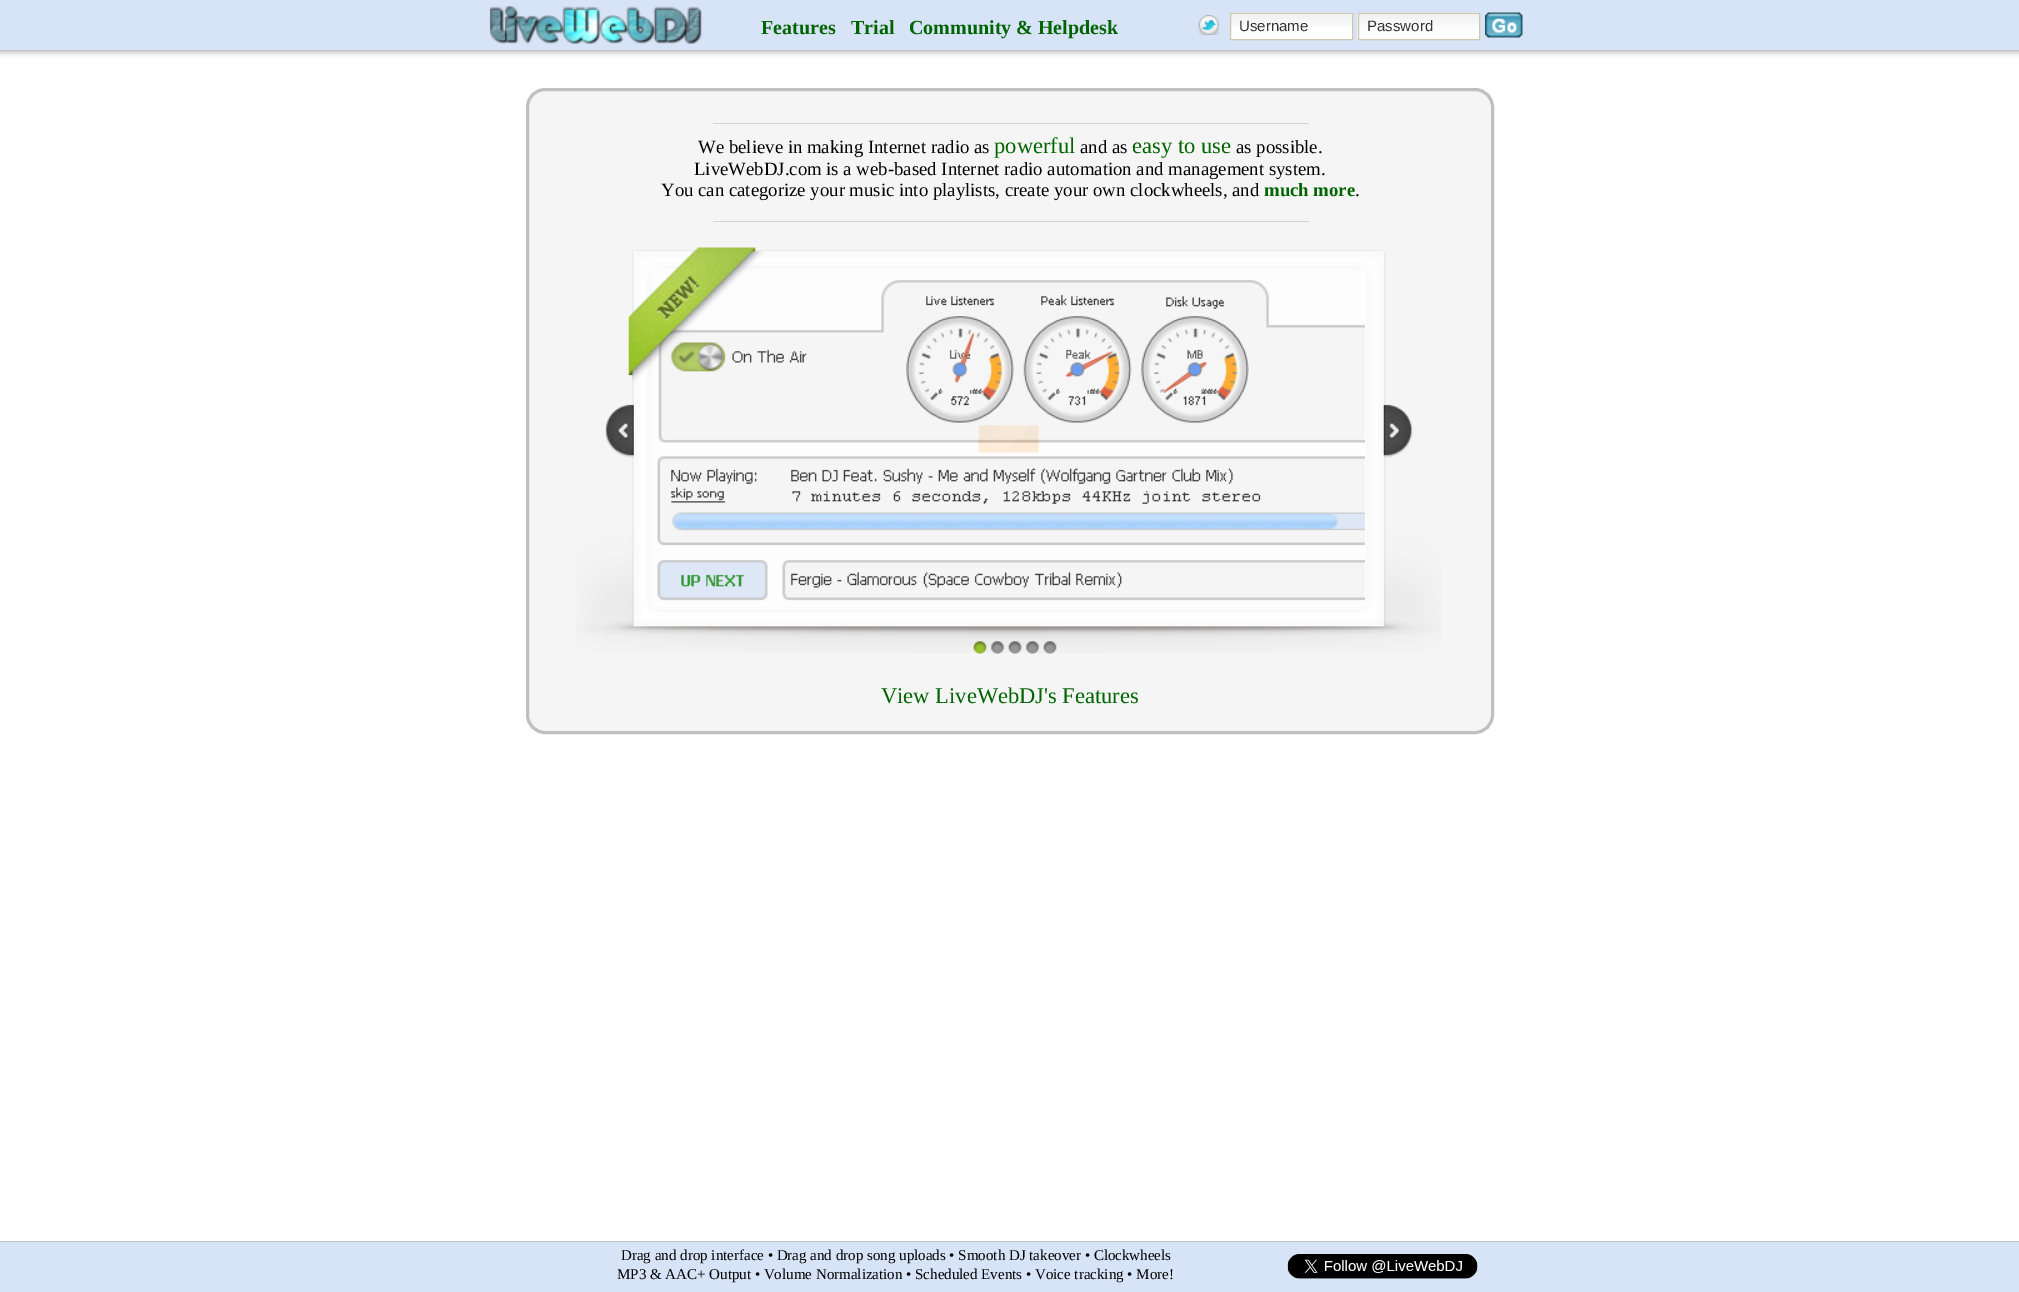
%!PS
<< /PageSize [2019 1292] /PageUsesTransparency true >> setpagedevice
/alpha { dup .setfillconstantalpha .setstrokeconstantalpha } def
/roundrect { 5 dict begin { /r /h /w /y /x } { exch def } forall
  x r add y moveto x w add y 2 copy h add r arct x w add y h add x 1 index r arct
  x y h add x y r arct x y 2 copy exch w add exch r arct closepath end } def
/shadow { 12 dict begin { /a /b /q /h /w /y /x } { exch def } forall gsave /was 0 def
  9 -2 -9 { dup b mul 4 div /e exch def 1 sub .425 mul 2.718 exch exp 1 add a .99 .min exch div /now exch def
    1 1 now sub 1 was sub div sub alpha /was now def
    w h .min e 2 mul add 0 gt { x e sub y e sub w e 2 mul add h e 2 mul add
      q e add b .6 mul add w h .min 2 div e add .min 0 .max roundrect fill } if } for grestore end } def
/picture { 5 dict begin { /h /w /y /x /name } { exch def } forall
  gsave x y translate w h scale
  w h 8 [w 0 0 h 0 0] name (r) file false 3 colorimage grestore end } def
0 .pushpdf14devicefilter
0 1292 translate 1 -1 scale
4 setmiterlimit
1 setgray
0 0 2019 1292 rectfill
0.765 setgray
0 1 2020 52 0 2.5 1 shadow
0.843 0.89 0.965 setrgbcolor
0 0 2019 50 rectfill
0.765 setgray
0 50 2019 1 rectfill
(img1.rgb) 489 6 213 38 picture
/LiberationSerif-Bold [20 0 0 -20 0 0] selectfont
0 0.392 0 setrgbcolor
761 34 moveto (Features) show
851 34 moveto (Trial) show
909 34 moveto (Community & Helpdesk) show
(img2.rgb) 1198 15 21 20 picture
1 setgray
1231 14 121 25 rectfill
(img3.rgb) 1231 15 121 12 picture
0.82 0.78 0.675 setrgbcolor
1230.5 13.5 122 26 rectstroke
/LiberationSans-Regular [15 0 0 -15 0 0] selectfont
0.2 setgray
1239 31 moveto (Username) show
(img4.rgb) 1357 13 122 27 picture
0.82 0.78 0.675 setrgbcolor
1358.5 13.5 121 26 rectstroke
0.2 setgray
1367 31 moveto (Password) show
(img5.rgb) 1485 12 38 26 picture
0.961 setgray
527.5 89.5 965 643 17.5 roundrect gsave fill grestore
0.753 setgray
3 setlinewidth
stroke
0.827 setgray
713 123 596 1 rectfill
/LiberationSerif-Regular [18.75 0 0 -18.75 0 0] selectfont
0 setgray
698 153 moveto (We believe in making Internet radio as) show
/LiberationSerif-Regular [22.5 0 0 -22.5 0 0] selectfont
0 0.392 0 setrgbcolor
994 153 moveto (powerful) show
/LiberationSerif-Regular [18.75 0 0 -18.75 0 0] selectfont
0 setgray
1080 153 moveto (and as) show
/LiberationSerif-Regular [22.5 0 0 -22.5 0 0] selectfont
0 0.392 0 setrgbcolor
1132 153 moveto (easy to use) show
/LiberationSerif-Regular [18.75 0 0 -18.75 0 0] selectfont
0 setgray
1236 153 moveto (as possible.) show
694 175 moveto (LiveWebDJ.com is a web-based Internet radio automation and management system.) show
661 196 moveto (You can categorize your music into playlists, create your own clockwheels, and) show
/LiberationSerif-Bold [18.75 0 0 -18.75 0 0] selectfont
0 0.392 0 setrgbcolor
1264 196 moveto (much more) show
/LiberationSerif-Regular [18.75 0 0 -18.75 0 0] selectfont
0 setgray
1355 196 moveto (.) show
0.827 setgray
713 221 596 1 rectfill
(img7.rgb) 576 250 866 403 picture
(img9.rgb) 978 425 61 28 picture
(img10.rgb) 653 270 712 337 picture
(img6.rgb) 628 247 135 135 picture
(img8.rgb) 605 404 29 54 picture
(img11.rgb) 1383 404 30 54 picture
(img12.rgb) 973 641 14 14 picture
(img13.rgb) 991 641 13 14 picture
(img14.rgb) 1008 641 14 14 picture
(img13.rgb) 1026 641 13 14 picture
(img15.rgb) 1043 641 14 14 picture
/LiberationSerif-Regular [22.5 0 0 -22.5 0 0] selectfont
0 0.392 0 setrgbcolor
881 703 moveto (View LiveWebDJ's Features) show
0.843 0.89 0.965 setrgbcolor
0 1242 2019 50 rectfill
0.765 setgray
0 1241 2019 1 rectfill
/LiberationSerif-Regular [15 0 0 -15 0 0] selectfont
0 setgray
621 1260 moveto (Drag and drop interface • Drag and drop song uploads • Smooth DJ takeover • Clockwheels) show
617 1279 moveto (MP3 & AAC+ Output • Volume Normalization • Scheduled Events • Voice tracking • More!) show
(img16.rgb) 1287 1254 191 25 picture
.poppdf14devicefilter showpage
